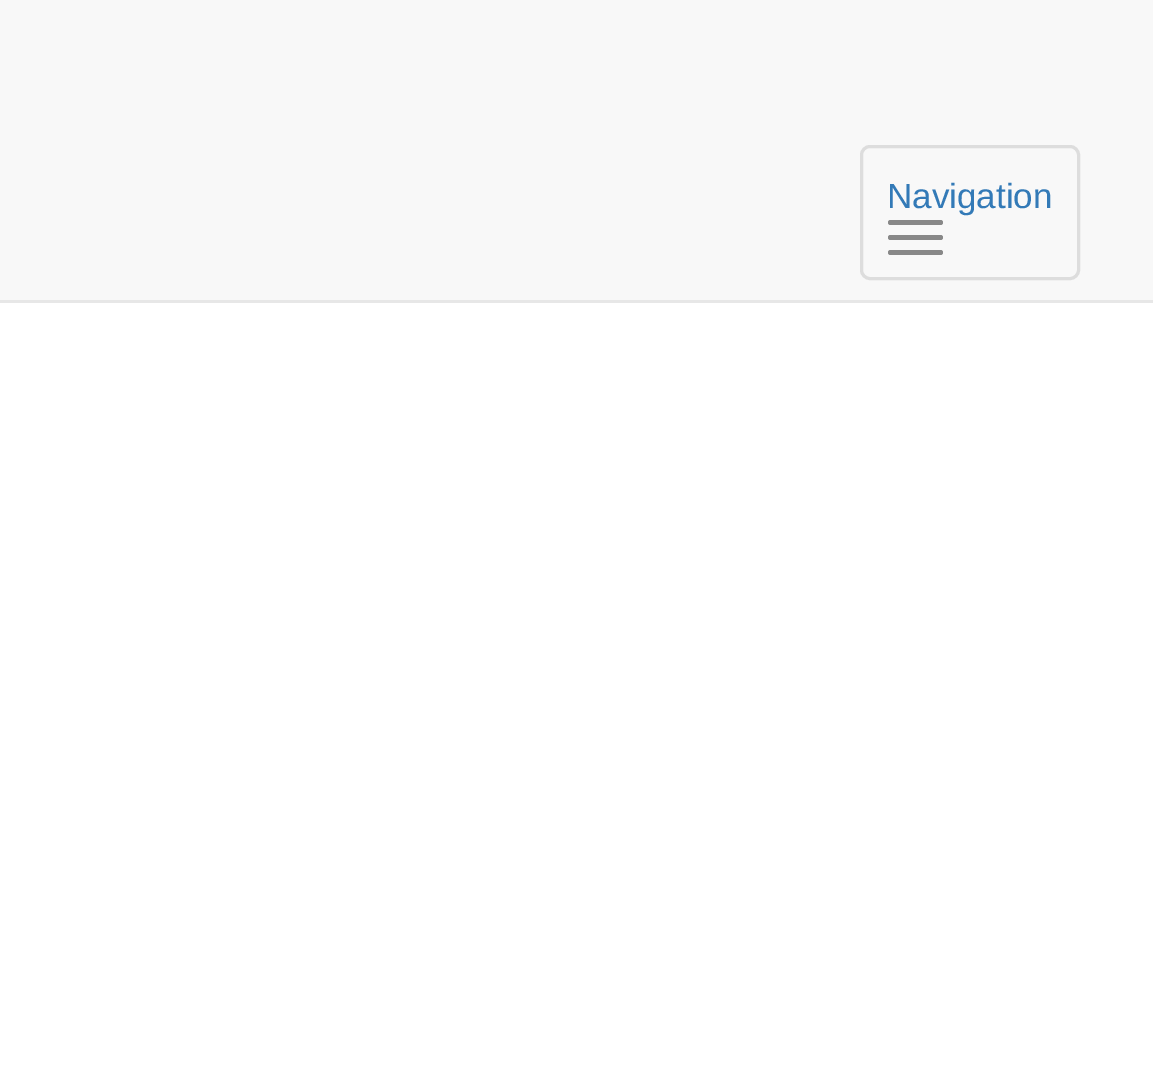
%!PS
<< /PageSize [1153 1080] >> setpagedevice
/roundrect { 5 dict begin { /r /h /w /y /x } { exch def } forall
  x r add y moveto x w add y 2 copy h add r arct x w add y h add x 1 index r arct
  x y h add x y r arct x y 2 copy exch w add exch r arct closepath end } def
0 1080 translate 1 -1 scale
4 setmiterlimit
1 setgray
0 0 1153 1080 rectfill
0.973 setgray
0 0 1153 300 rectfill
0.906 setgray
0 300 1153 3 rectfill
0.867 setgray
3 setlinewidth
861.5 146.5 217 132 8.5 roundrect stroke
/LiberationSans-Regular [35 0 0 -35 0 0] selectfont
0.2 0.478 0.718 setrgbcolor
887 208 moveto (Navigation) show
0.533 setgray
888 220 55 5 2.5 roundrect fill
888 235 55 5 2.5 roundrect fill
888 250 55 5 2.5 roundrect fill
showpage
